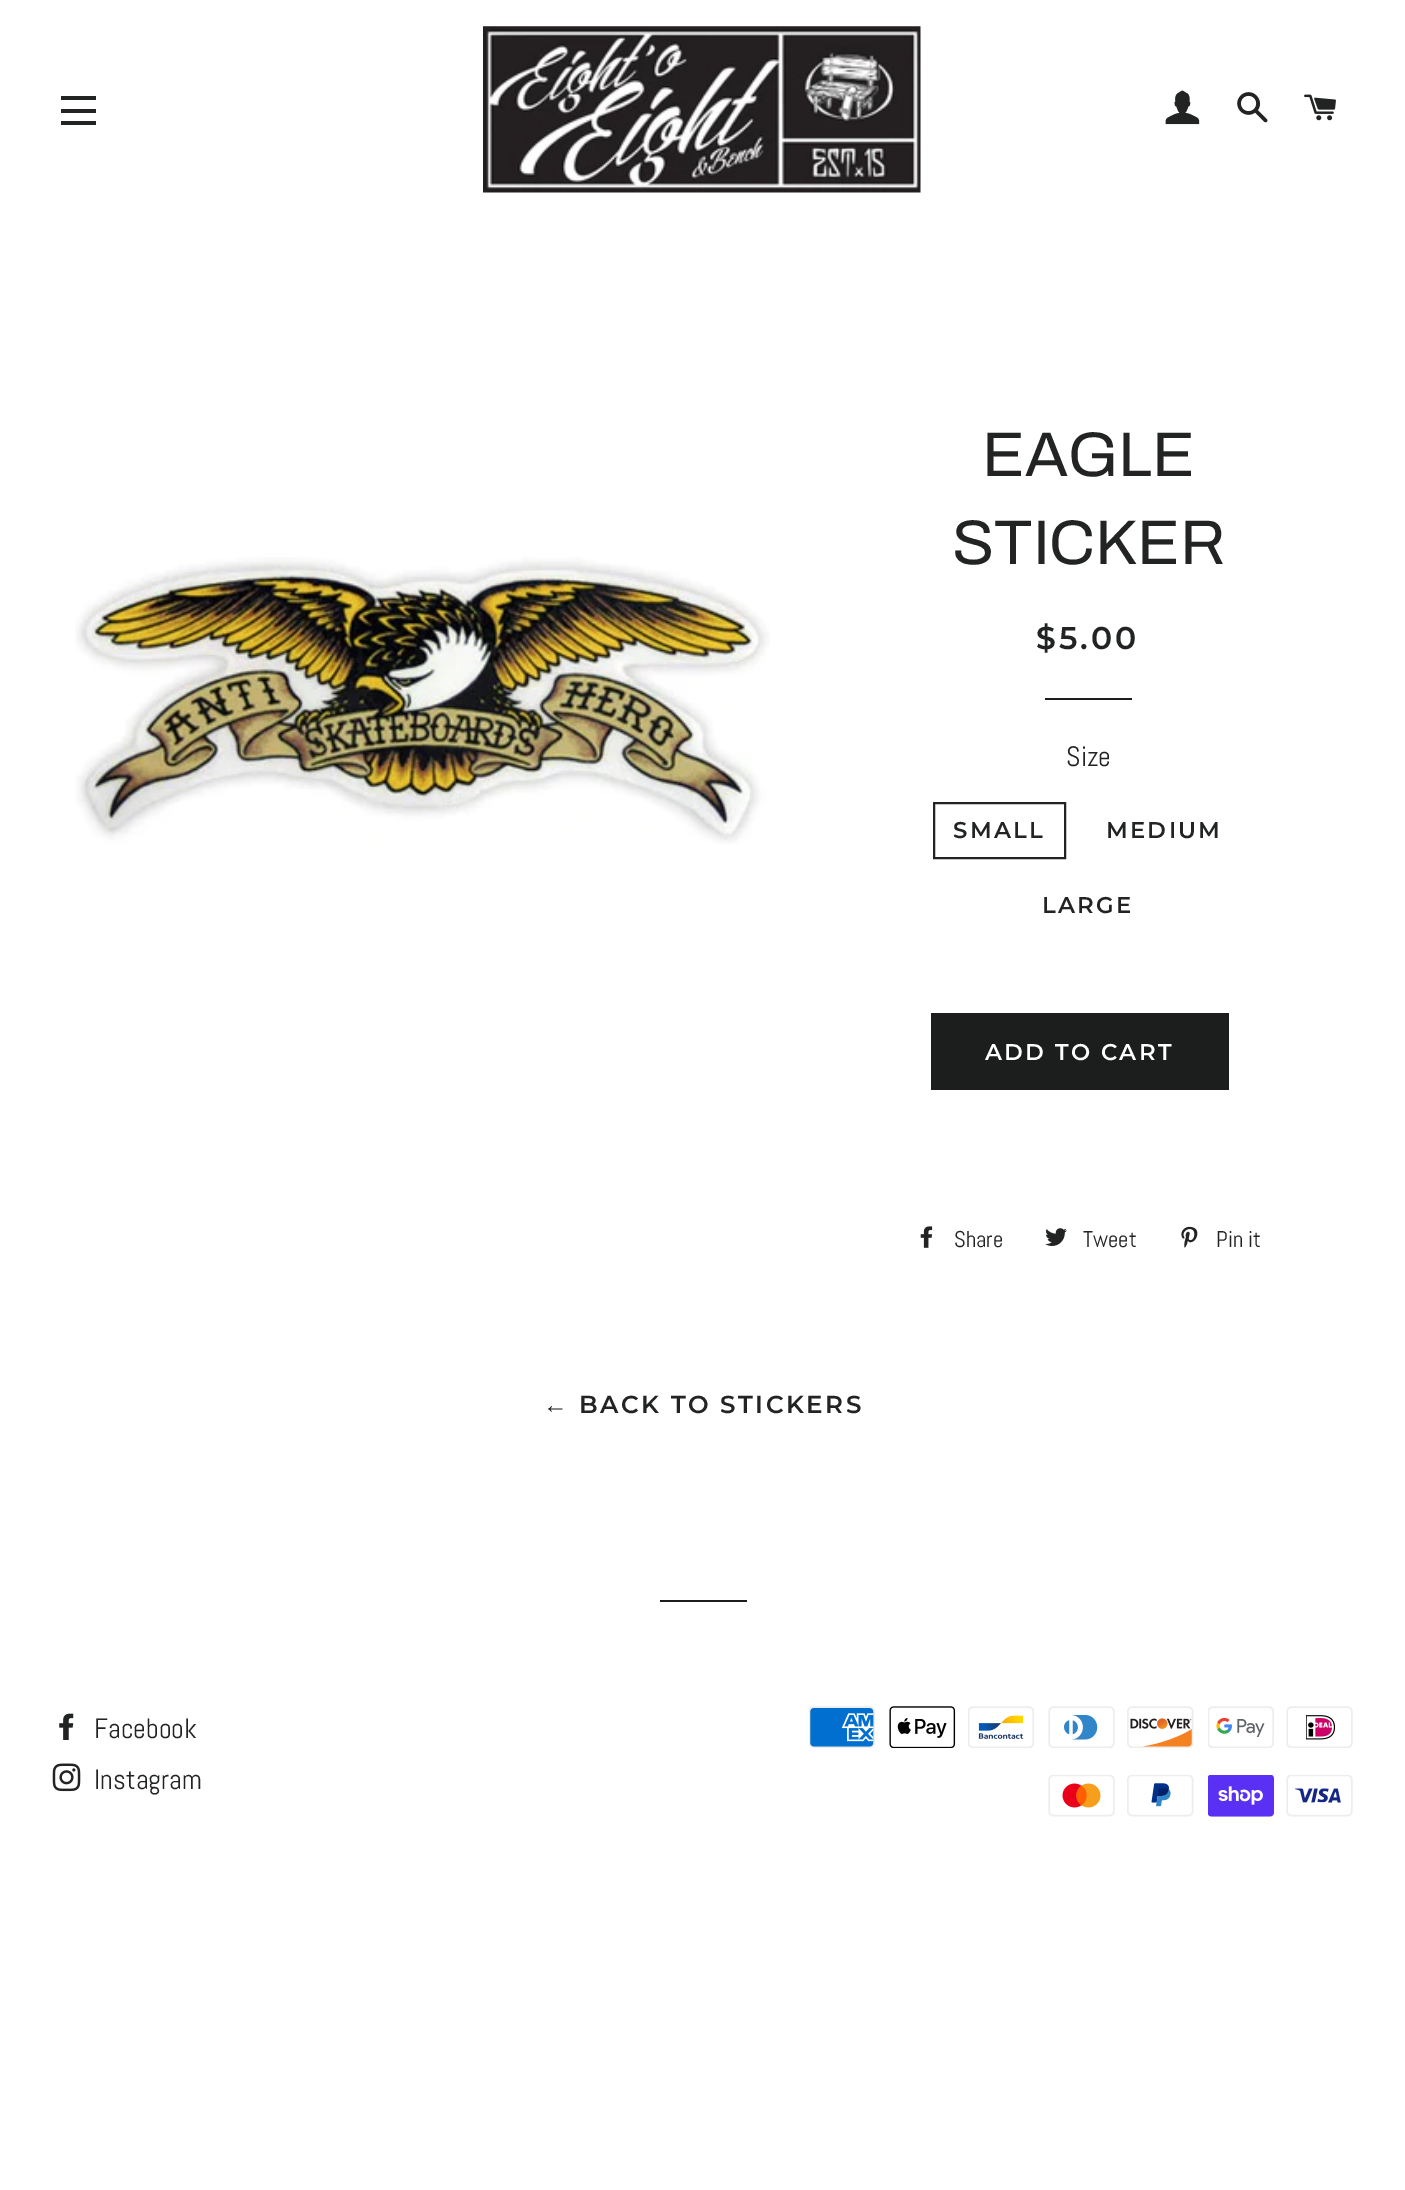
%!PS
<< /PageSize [1405 2190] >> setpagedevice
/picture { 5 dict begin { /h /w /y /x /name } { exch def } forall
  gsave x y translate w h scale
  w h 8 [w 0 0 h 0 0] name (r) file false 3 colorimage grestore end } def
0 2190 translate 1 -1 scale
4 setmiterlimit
1 setgray
0 0 1405 2190 rectfill
0.133 0.137 0.137 setrgbcolor
61 96 35 4 rectfill
61 109 35 4 rectfill
61 121 35 4 rectfill
(img1.rgb) 483 26 438 167 picture
(img2.rgb) 1165 90 35 35 picture
(img3.rgb) 1237 92 31 31 picture
(img4.rgb) 1304 94 32 27 picture
(img5.rgb) 75 557 695 287 picture
/Archivo-Regular [63 0 0 -63 0 0] selectfont
982 476 moveto (EAGLE) show
952 564 moveto (STICKER) show
/Montserrat-SemiBold [31.5 0 0 -31.5 0 0] selectfont
1036 649 moveto 3 0 ($5.00) ashow
0.11 0.114 0.114 setrgbcolor
1045 698 87 2 rectfill
/Abel-Regular [28 0 0 -28 0 0] selectfont
0.133 0.137 0.137 setrgbcolor
1066 766 moveto (Size) show
2 setlinewidth
934 803 131 55 rectstroke
/Montserrat-SemiBold [22.75 0 0 -22.75 0 0] selectfont
953 838 moveto 2.25 0 (SMALL) ashow
1106 838 moveto 2.25 0 (MEDIUM) ashow
1042 913 moveto 2.25 0 (LARGE) ashow
0.11 0.114 0.114 setrgbcolor
931 1013 298 77 rectfill
1 setgray
985 1060 moveto 2.25 0 (ADD TO CART) ashow
(img6.rgb) 920 1226 13 22 picture
/Abel-Regular [22.75 0 0 -22.75 0 0] selectfont
0.133 0.137 0.137 setrgbcolor
954 1247 moveto (Share) show
(img7.rgb) 1045 1228 22 18 picture
1083 1247 moveto (Tweet) show
(img8.rgb) 1181 1226 17 22 picture
1216 1247 moveto (Pin it) show
/LiberationSans-Bold [24.5 0 0 -24.5 0 0] selectfont
543 1413 moveto 2.5 0 (←) ashow
/Montserrat-SemiBold [24.5 0 0 -24.5 0 0] selectfont
579 1413 moveto 2.5 0 (BACK TO STICKERS) ashow
0.11 0.114 0.114 setrgbcolor
660 1600 87 2 rectfill
(img9.rgb) 59 1713 15 27 picture
/Abel-Regular [28 0 0 -28 0 0] selectfont
0.133 0.137 0.137 setrgbcolor
94 1738 moveto (Facebook) show
(img10.rgb) 52 1763 29 29 picture
94 1789 moveto (Instagram) show
(img11.rgb) 809 1706 66 42 picture
(img12.rgb) 889 1706 67 42 picture
(img13.rgb) 968 1706 66 42 picture
(img14.rgb) 1048 1706 67 42 picture
(img15.rgb) 1127 1706 67 42 picture
(img16.rgb) 1208 1706 66 42 picture
(img17.rgb) 1286 1706 67 42 picture
(img18.rgb) 1048 1775 67 42 picture
(img19.rgb) 1127 1775 67 42 picture
(img20.rgb) 1208 1775 66 42 picture
(img21.rgb) 1286 1775 67 42 picture
showpage
